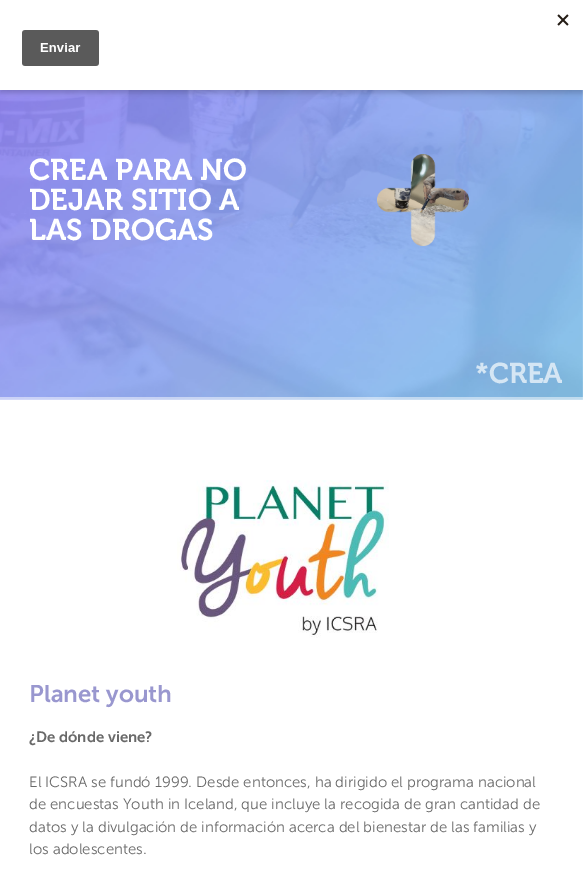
%!PS
<< /PageSize [583 871] /PageUsesTransparency true >> setpagedevice
/alpha { dup .setfillconstantalpha .setstrokeconstantalpha } def
/roundrect { 5 dict begin { /r /h /w /y /x } { exch def } forall
  x r add y moveto x w add y 2 copy h add r arct x w add y h add x 1 index r arct
  x y h add x y r arct x y 2 copy exch w add exch r arct closepath end } def
/shadow { 12 dict begin { /a /b /q /h /w /y /x } { exch def } forall gsave /was 0 def
  9 -2 -9 { dup b mul 4 div /e exch def 1 sub .425 mul 2.718 exch exp 1 add a .99 .min exch div /now exch def
    1 1 now sub 1 was sub div sub alpha /was now def
    w h .min e 2 mul add 0 gt { x e sub y e sub w e 2 mul add h e 2 mul add
      q e add b .6 mul add w h .min 2 div e add .min 0 .max roundrect fill } if } for grestore end } def
/picture { 5 dict begin { /h /w /y /x /name } { exch def } forall
  gsave x y translate w h scale
  w h 8 [w 0 0 h 0 0] name (r) file false 3 colorimage grestore end } def
0 .pushpdf14devicefilter
0 871 translate 1 -1 scale
4 setmiterlimit
1 setgray
0 0 583 871 rectfill
(img2.rgb) 0 90 583 310 picture
0 setgray
0 3 583 90 0 3 0.2 shadow
1 setgray
0 0 583 90 rectfill
(img1.rgb) 22 14 547 52 picture
/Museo-Regular [30 0 0 -30 0 0] selectfont
29 180 moveto (CREA PARA NO) show
29 210 moveto (DEJAR SITIO A) show
29 240 moveto (LAS DROGAS) show
(img3.rgb) 377 154 92 92 picture
/Museo-Regular [28.5 0 0 -28.5 0 0] selectfont
0.835 0.902 0.957 setrgbcolor
475 383 moveto (*CREA) show
0.5 alpha
1 setgray
0 397 583 3 rectfill
1 alpha
(img4.rgb) 177 480 212 158 picture
/MuseoSans-SemiBold [24 0 0 -24 0 0] selectfont
0.6 0.592 0.812 setrgbcolor
29 702 moveto (Planet youth) show
/MuseoSans-SemiBold [15 0 0 -15 0 0] selectfont
0.412 setgray
29 742 moveto (¿De dónde viene?) show
/MuseoSans-Light [15 0 0 -15 0 0] selectfont
29 787 moveto (El ICSRA se fundó 1999. Desde entonces, ha dirigido el programa nacional) show
29 809 moveto (de encuestas Youth in Iceland, que incluye la recogida de gran cantidad de) show
29 832 moveto (datos y la divulgación de información acerca del bienestar de las familias y) show
29 854 moveto (los adolescentes.) show
.poppdf14devicefilter showpage
